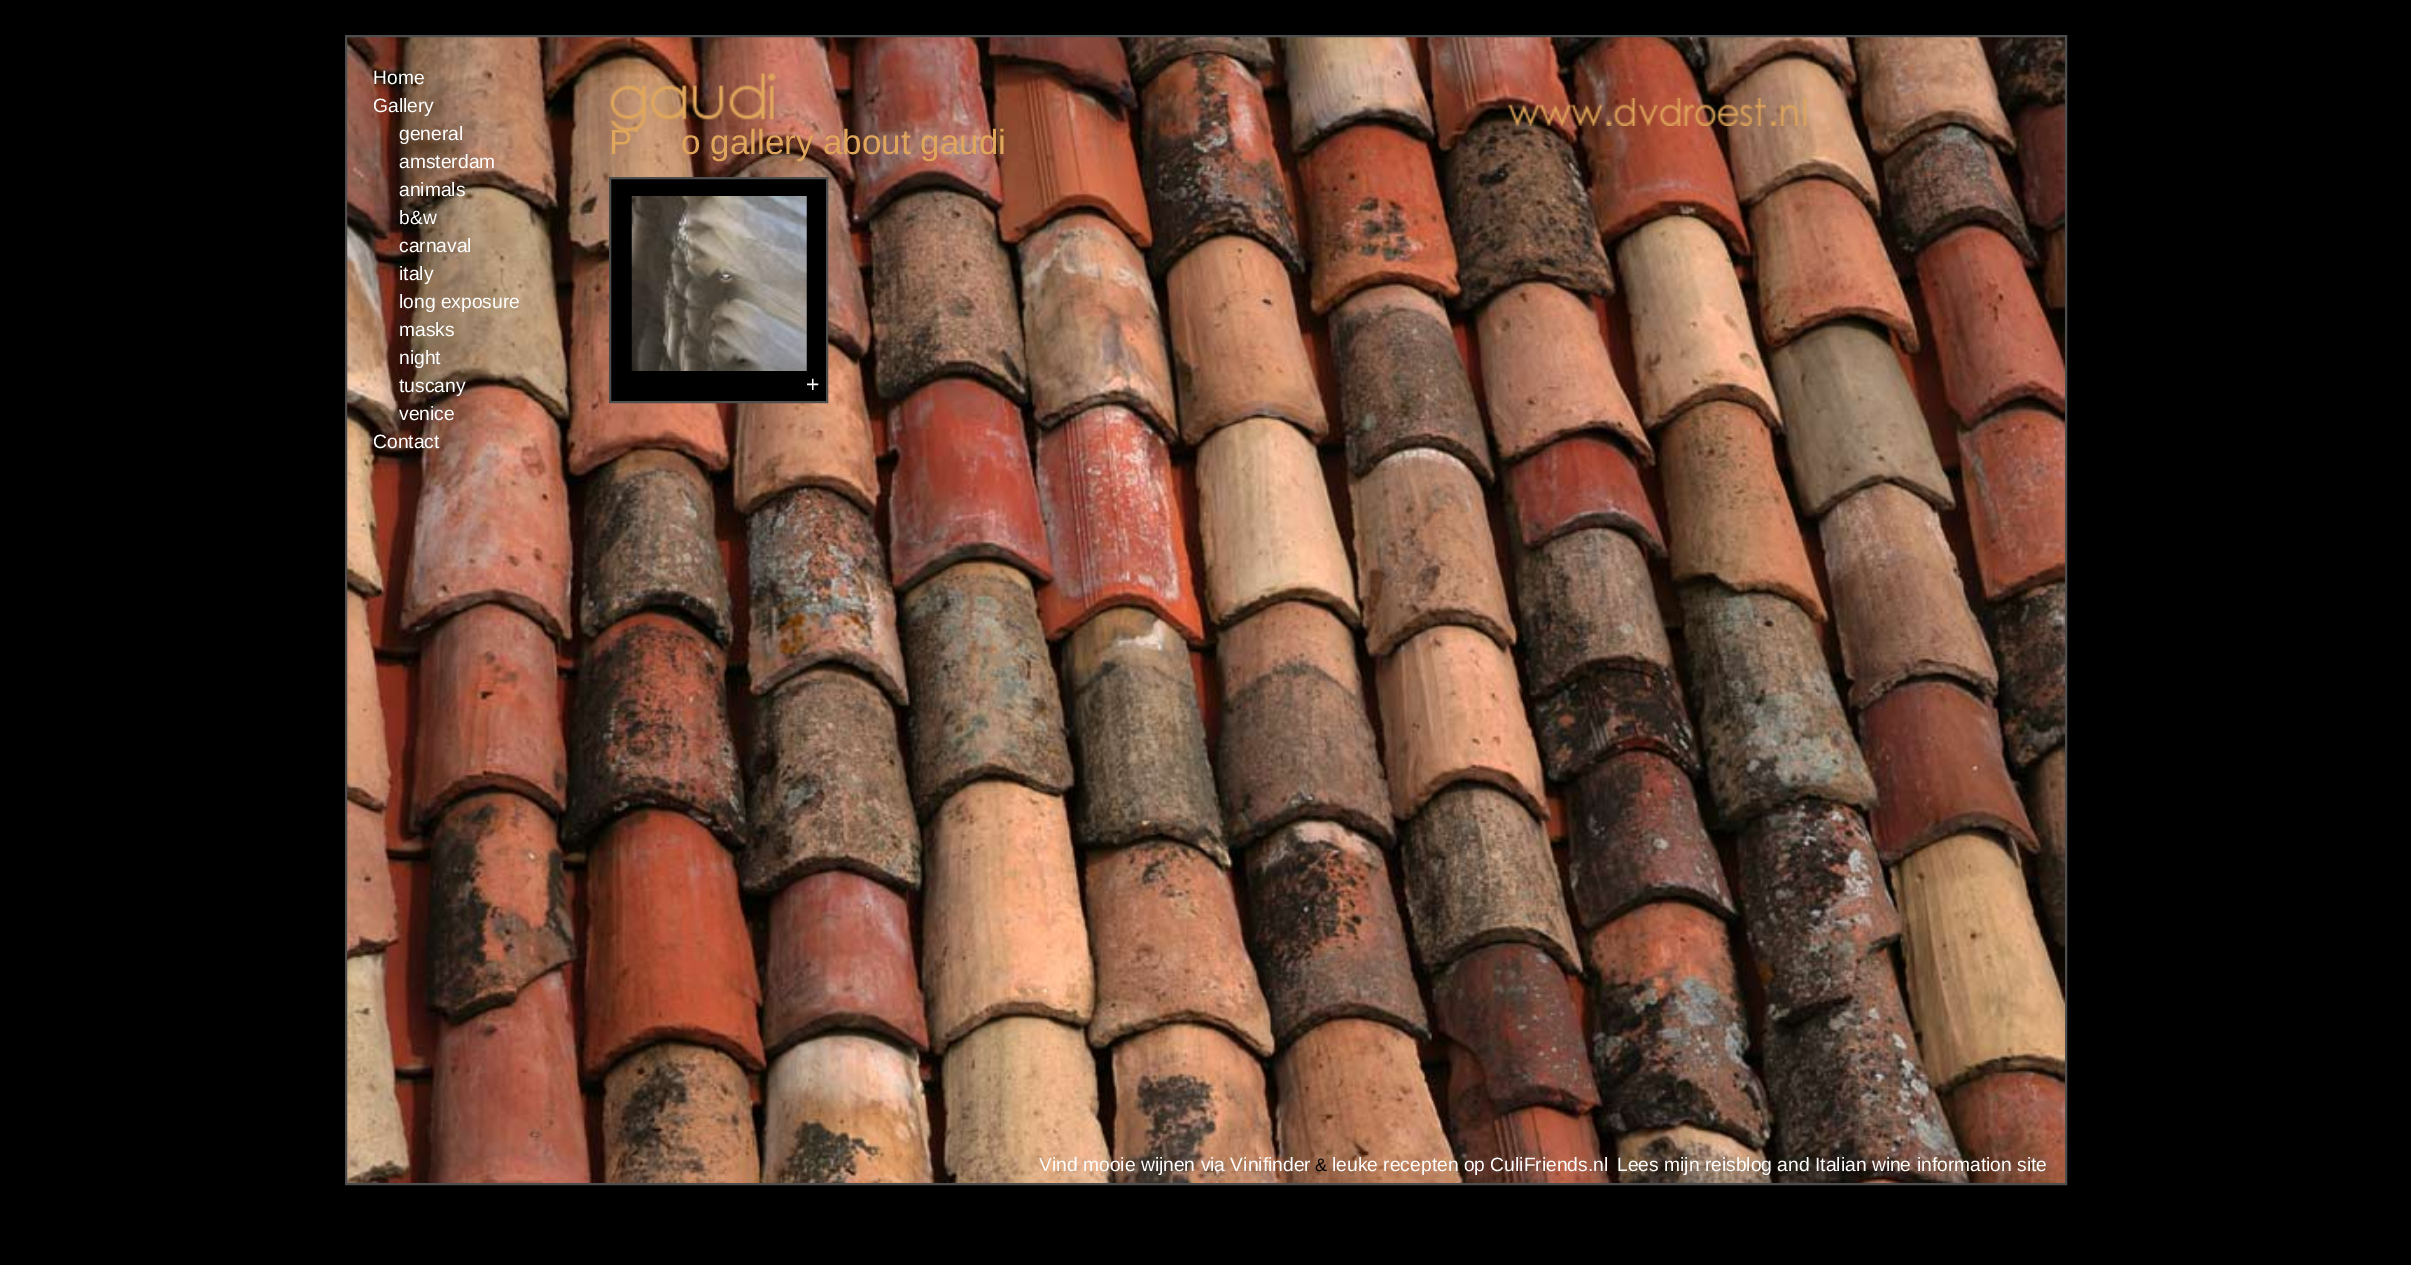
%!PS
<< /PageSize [2411 1265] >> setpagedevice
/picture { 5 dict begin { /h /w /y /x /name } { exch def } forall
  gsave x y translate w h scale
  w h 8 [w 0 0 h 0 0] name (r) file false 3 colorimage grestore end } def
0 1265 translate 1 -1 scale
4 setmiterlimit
0 setgray
0 0 2411 1265 rectfill
(img1.rgb) 347 37 1718 1146 picture
0.306 setgray
2 setlinewidth
346 36 1720 1148 rectstroke
/LiberationSans-Regular [19.25 0 0 -19.25 0 0] selectfont
1 setgray
373 84 moveto (Home) show
373 112 moveto (Gallery) show
399 140 moveto (general) show
399 168 moveto (amsterdam) show
399 196 moveto (animals) show
399 224 moveto (b&w) show
399 252 moveto (carnaval) show
399 280 moveto (italy) show
399 308 moveto (long exposure) show
399 336 moveto (masks) show
399 364 moveto (night) show
399 392 moveto (tuscany) show
399 420 moveto (venice) show
373 448 moveto (Contact) show
/LiberationSans-Regular [35 0 0 -35 0 0] selectfont
0.878 0.655 0.361 setrgbcolor
609 154 moveto (P) show
681 154 moveto (o gallery about gaudi) show
(img2.rgb) 610 73 166 59 picture
(img3.rgb) 1508 98 300 28 picture
0 setgray
newpath 610 178 moveto 827 178 lineto 827 402 lineto 610 402 lineto closepath gsave fill grestore
0.306 setgray
stroke
(img4.rgb) 631 196 176 175 picture
/LiberationSans-Regular [23 0 0 -23 0 0] selectfont
1 setgray
806 392 moveto (+) show
/LiberationSans-Regular [19.25 0 0 -19.25 0 0] selectfont
1039 1171 moveto (Vind mooie wijnen via Vinifinder) show
/LiberationSans-Regular [18 0 0 -18 0 0] selectfont
0 setgray
1315 1171 moveto (&) show
/LiberationSans-Regular [19.25 0 0 -19.25 0 0] selectfont
1 setgray
1332 1171 moveto (leuke recepten op CuliFriends.nl) show
1617 1171 moveto (Lees mijn reisblog and Italian wine information site) show
showpage
